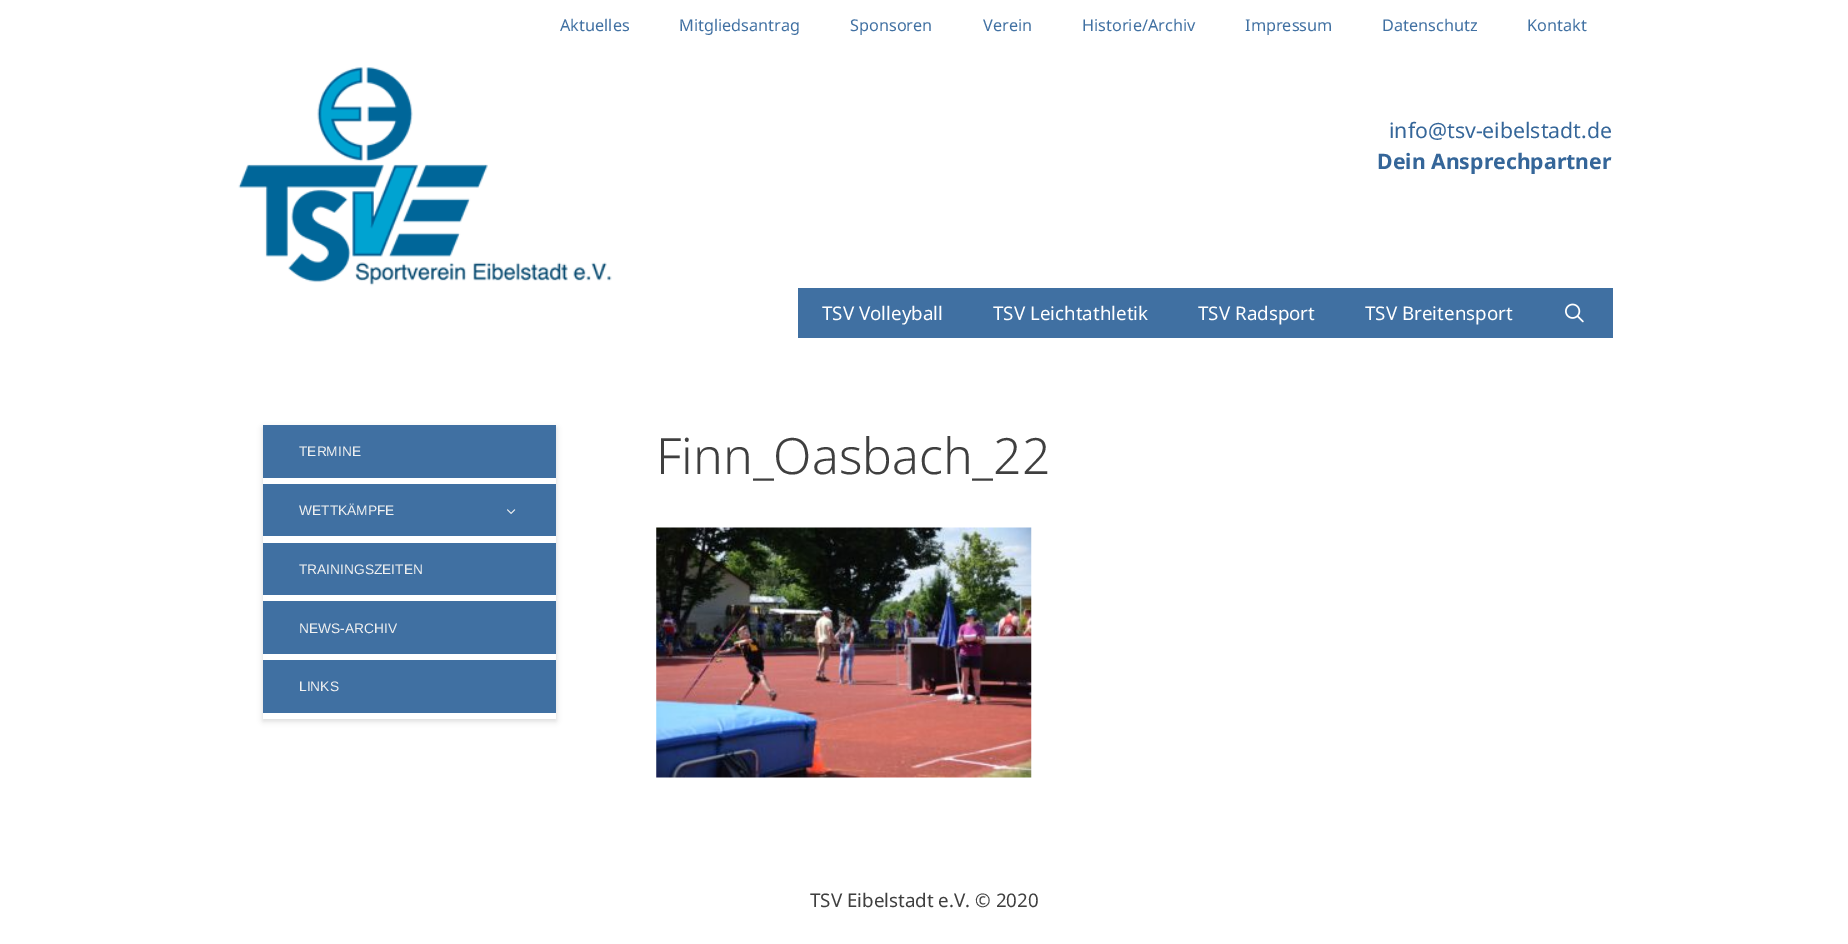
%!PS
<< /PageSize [1848 944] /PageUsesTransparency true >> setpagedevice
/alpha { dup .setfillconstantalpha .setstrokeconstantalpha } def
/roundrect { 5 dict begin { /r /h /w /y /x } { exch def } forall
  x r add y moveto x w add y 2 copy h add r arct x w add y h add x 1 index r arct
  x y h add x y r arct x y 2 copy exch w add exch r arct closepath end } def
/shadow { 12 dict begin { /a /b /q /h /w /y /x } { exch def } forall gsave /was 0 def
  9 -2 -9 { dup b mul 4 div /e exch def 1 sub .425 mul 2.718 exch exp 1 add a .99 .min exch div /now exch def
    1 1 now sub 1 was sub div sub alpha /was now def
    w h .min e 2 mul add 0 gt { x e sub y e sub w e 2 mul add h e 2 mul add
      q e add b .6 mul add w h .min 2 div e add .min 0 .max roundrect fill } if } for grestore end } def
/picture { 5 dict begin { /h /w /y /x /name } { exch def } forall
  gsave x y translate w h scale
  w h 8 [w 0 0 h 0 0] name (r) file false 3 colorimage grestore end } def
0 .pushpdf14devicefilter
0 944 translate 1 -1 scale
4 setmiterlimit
1 setgray
0 0 1848 944 rectfill
/NotoSans-Regular [16.25 0 0 -16.25 0 0] selectfont
0.251 0.439 0.635 setrgbcolor
560 31 moveto (Aktuelles) show
679 31 moveto (Mitgliedsantrag) show
850 31 moveto (Sponsoren) show
983 31 moveto (Verein) show
1082 31 moveto (Historie/Archiv) show
1245 31 moveto (Impressum) show
1382 31 moveto (Datenschutz) show
1527 31 moveto (Kontakt) show
(img1.rgb) 238 67 374 219 picture
/NotoSans-Regular [21.25 0 0 -21.25 0 0] selectfont
0.208 0.4 0.6 setrgbcolor
1389 138 moveto (info@tsv-eibelstadt.de) show
/NotoSans-Bold [21.25 0 0 -21.25 0 0] selectfont
1377 169 moveto (Dein Ansprechpartner) show
0.251 0.439 0.635 setrgbcolor
798 288 815 50 rectfill
/NotoSans-Regular [18.75 0 0 -18.75 0 0] selectfont
1 setgray
822 320 moveto (TSV Volleyball) show
993 320 moveto (TSV Leichtathletik) show
1198 320 moveto (TSV Radsport) show
1365 320 moveto (TSV Breitensport) show
(img2.rgb) 1565 303 19 20 picture
0 setgray
263 428 293 293 0 3 0.15 shadow
1 setgray
263 478 293 241 rectfill
0.251 0.439 0.635 setrgbcolor
263 425 293 53 rectfill
/LiberationSans-Regular [13.75 0 0 -13.75 0 0] selectfont
0.945 setgray
299 456 moveto (TERMINE) show
0.251 0.439 0.635 setrgbcolor
263 484 293 52 rectfill
0.945 setgray
299 515 moveto (WETTKÄMPFE) show
(img3.rgb) 507 509 9 5 picture
0.251 0.439 0.635 setrgbcolor
263 543 293 52 rectfill
0.945 setgray
299 574 moveto (TRAININGSZEITEN) show
0.251 0.439 0.635 setrgbcolor
263 601 293 53 rectfill
0.945 setgray
299 633 moveto (NEWS-ARCHIV) show
0.251 0.439 0.635 setrgbcolor
263 660 293 53 rectfill
0.945 setgray
299 691 moveto (LINKS) show
/NotoSans-Light [50 0 0 -50 0 0] selectfont
0.247 setgray
656 474 moveto (Finn_Oasbach_22) show
(img4.rgb) 656 527 376 251 picture
/NotoSans-Regular [18.75 0 0 -18.75 0 0] selectfont
810 907 moveto (TSV Eibelstadt e.V. © 2020) show
.poppdf14devicefilter showpage
